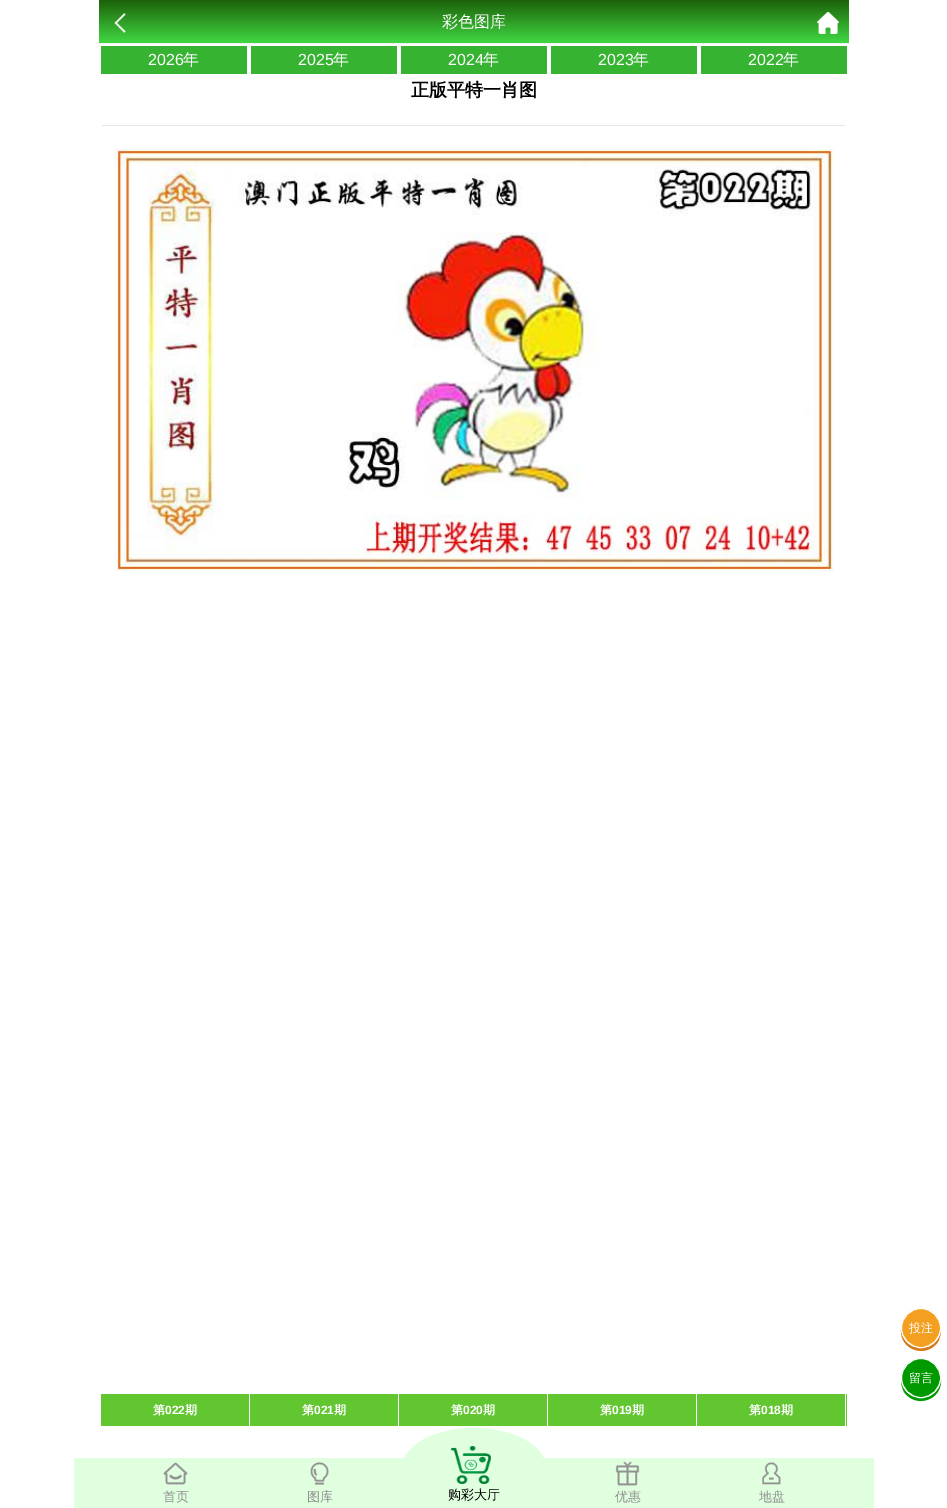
%!PS
<< /PageSize [947 1508] >> setpagedevice
/picture { 5 dict begin { /h /w /y /x /name } { exch def } forall
  gsave x y translate w h scale
  w h 8 [w 0 0 h 0 0] name (r) file false 3 colorimage grestore end } def
0 1508 translate 1 -1 scale
4 setmiterlimit
1 setgray
0 0 947 1508 rectfill
gsave newpath 99 0 moveto 849 0 lineto 849 43 lineto 99 43 lineto closepath clip newpath
<< /ShadingType 2 /ColorSpace /DeviceRGB /Coords [474 43 474 0] /Extend [true true] /Function << /FunctionType 2 /Domain [0 1] /C0 [0.255 0.847 0.263] /C1 [0.11 0.38 0.035] /N 1 >> >> shfill grestore
0.937 setgray
99 43 750 1 rectfill
(img1.rgb) 114 13 12 20 picture
/WenQuanYiZenHei-Medium [16 0 0 -16 0 0] selectfont
1 setgray
442 27 moveto (彩色图库) show
(img2.rgb) 817 12 22 22 picture
0.208 0.702 0.192 setrgbcolor
101 46 146 28 rectfill
/LiberationSans-Regular [16 0 0 -16 0 0] selectfont
1 setgray
148 65 moveto (2026) show
/WenQuanYiZenHei-Medium [16 0 0 -16 0 0] selectfont
183 65 moveto (年) show
0.208 0.702 0.192 setrgbcolor
251 46 146 28 rectfill
/LiberationSans-Regular [16 0 0 -16 0 0] selectfont
1 setgray
298 65 moveto (2025) show
/WenQuanYiZenHei-Medium [16 0 0 -16 0 0] selectfont
333 65 moveto (年) show
0.208 0.702 0.192 setrgbcolor
401 46 146 28 rectfill
/LiberationSans-Regular [16 0 0 -16 0 0] selectfont
1 setgray
448 65 moveto (2024) show
/WenQuanYiZenHei-Medium [16 0 0 -16 0 0] selectfont
483 65 moveto (年) show
0.208 0.702 0.192 setrgbcolor
551 46 146 28 rectfill
/LiberationSans-Regular [16 0 0 -16 0 0] selectfont
1 setgray
598 65 moveto (2023) show
/WenQuanYiZenHei-Medium [16 0 0 -16 0 0] selectfont
633 65 moveto (年) show
0.208 0.702 0.192 setrgbcolor
701 46 146 28 rectfill
/LiberationSans-Regular [16 0 0 -16 0 0] selectfont
1 setgray
748 65 moveto (2022) show
/WenQuanYiZenHei-Medium [16 0 0 -16 0 0] selectfont
783 65 moveto (年) show
/WenQuanYiZenHei-Bold [18 0 0 -18 0 0] selectfont
0 setgray
411 96 moveto (正版平特一肖图) show
0.902 setgray
102 125 743 1 rectfill
(img3.rgb) 114 149 720 422 picture
0.38 0.776 0.184 setrgbcolor
101 1394 148 32 rectfill
/WenQuanYiZenHei-Bold [12 0 0 -12 0 0] selectfont
1 setgray
153 1414 moveto (第) show
/LiberationSans-Bold [12 0 0 -12 0 0] selectfont
165 1414 moveto (022) show
/WenQuanYiZenHei-Bold [12 0 0 -12 0 0] selectfont
185 1414 moveto (期) show
0.38 0.776 0.184 setrgbcolor
250 1394 148 32 rectfill
1 setgray
302 1414 moveto (第) show
/LiberationSans-Bold [12 0 0 -12 0 0] selectfont
314 1414 moveto (021) show
/WenQuanYiZenHei-Bold [12 0 0 -12 0 0] selectfont
334 1414 moveto (期) show
0.38 0.776 0.184 setrgbcolor
399 1394 148 32 rectfill
1 setgray
451 1414 moveto (第) show
/LiberationSans-Bold [12 0 0 -12 0 0] selectfont
463 1414 moveto (020) show
/WenQuanYiZenHei-Bold [12 0 0 -12 0 0] selectfont
483 1414 moveto (期) show
0.38 0.776 0.184 setrgbcolor
548 1394 148 32 rectfill
1 setgray
600 1414 moveto (第) show
/LiberationSans-Bold [12 0 0 -12 0 0] selectfont
612 1414 moveto (019) show
/WenQuanYiZenHei-Bold [12 0 0 -12 0 0] selectfont
632 1414 moveto (期) show
0.38 0.776 0.184 setrgbcolor
697 1394 148 32 rectfill
1 setgray
749 1414 moveto (第) show
/LiberationSans-Bold [12 0 0 -12 0 0] selectfont
761 1414 moveto (018) show
/WenQuanYiZenHei-Bold [12 0 0 -12 0 0] selectfont
781 1414 moveto (期) show
0.38 0.776 0.184 setrgbcolor
846 1394 1 32 rectfill
0.835 0.482 0.114 setrgbcolor
newpath 941 1330 moveto 939 1354 903 1354 901 1330 curveto 900 1350 926 1359 938 1342 curveto 940 1338 941 1334 941 1330 curveto closepath fill
0.953 0.624 0.125 setrgbcolor
newpath 921 1328 19.5 0 360 arc closepath gsave fill grestore
1 setgray
stroke
/WenQuanYiZenHei-Medium [12 0 0 -12 0 0] selectfont
909 1332 moveto (投注) show
0 0.6 0 setrgbcolor
newpath 941 1380 moveto 939 1404 903 1404 901 1380 curveto 901 1384 902 1388 904 1392 curveto 916 1409 942 1400 941 1380 curveto closepath fill
newpath 921 1378 19.5 0 360 arc closepath gsave fill grestore
1 setgray
stroke
909 1382 moveto (留言) show
0.878 1 0.875 setrgbcolor
74 1458 800 50 rectfill
(img4.rgb) 163 1462 25 23 picture
/WenQuanYiZenHei-Medium [13 0 0 -13 0 0] selectfont
0.557 setgray
163 1501 moveto (首页) show
(img5.rgb) 310 1462 19 23 picture
307 1501 moveto (图库) show
0.878 1 0.875 setrgbcolor
newpath 474 1428 moveto 514 1428 546 1446 546 1468 curveto 546 1490 514 1508 474 1508 curveto 434 1508 402 1490 402 1468 curveto 402 1446 434 1428 474 1428 curveto closepath fill
(img6.rgb) 451 1446 40 38 picture
0 setgray
448 1499 moveto (购彩大厅) show
(img7.rgb) 615 1461 25 25 picture
0.557 setgray
615 1501 moveto (优惠) show
(img8.rgb) 762 1462 19 23 picture
759 1501 moveto (地盘) show
showpage
